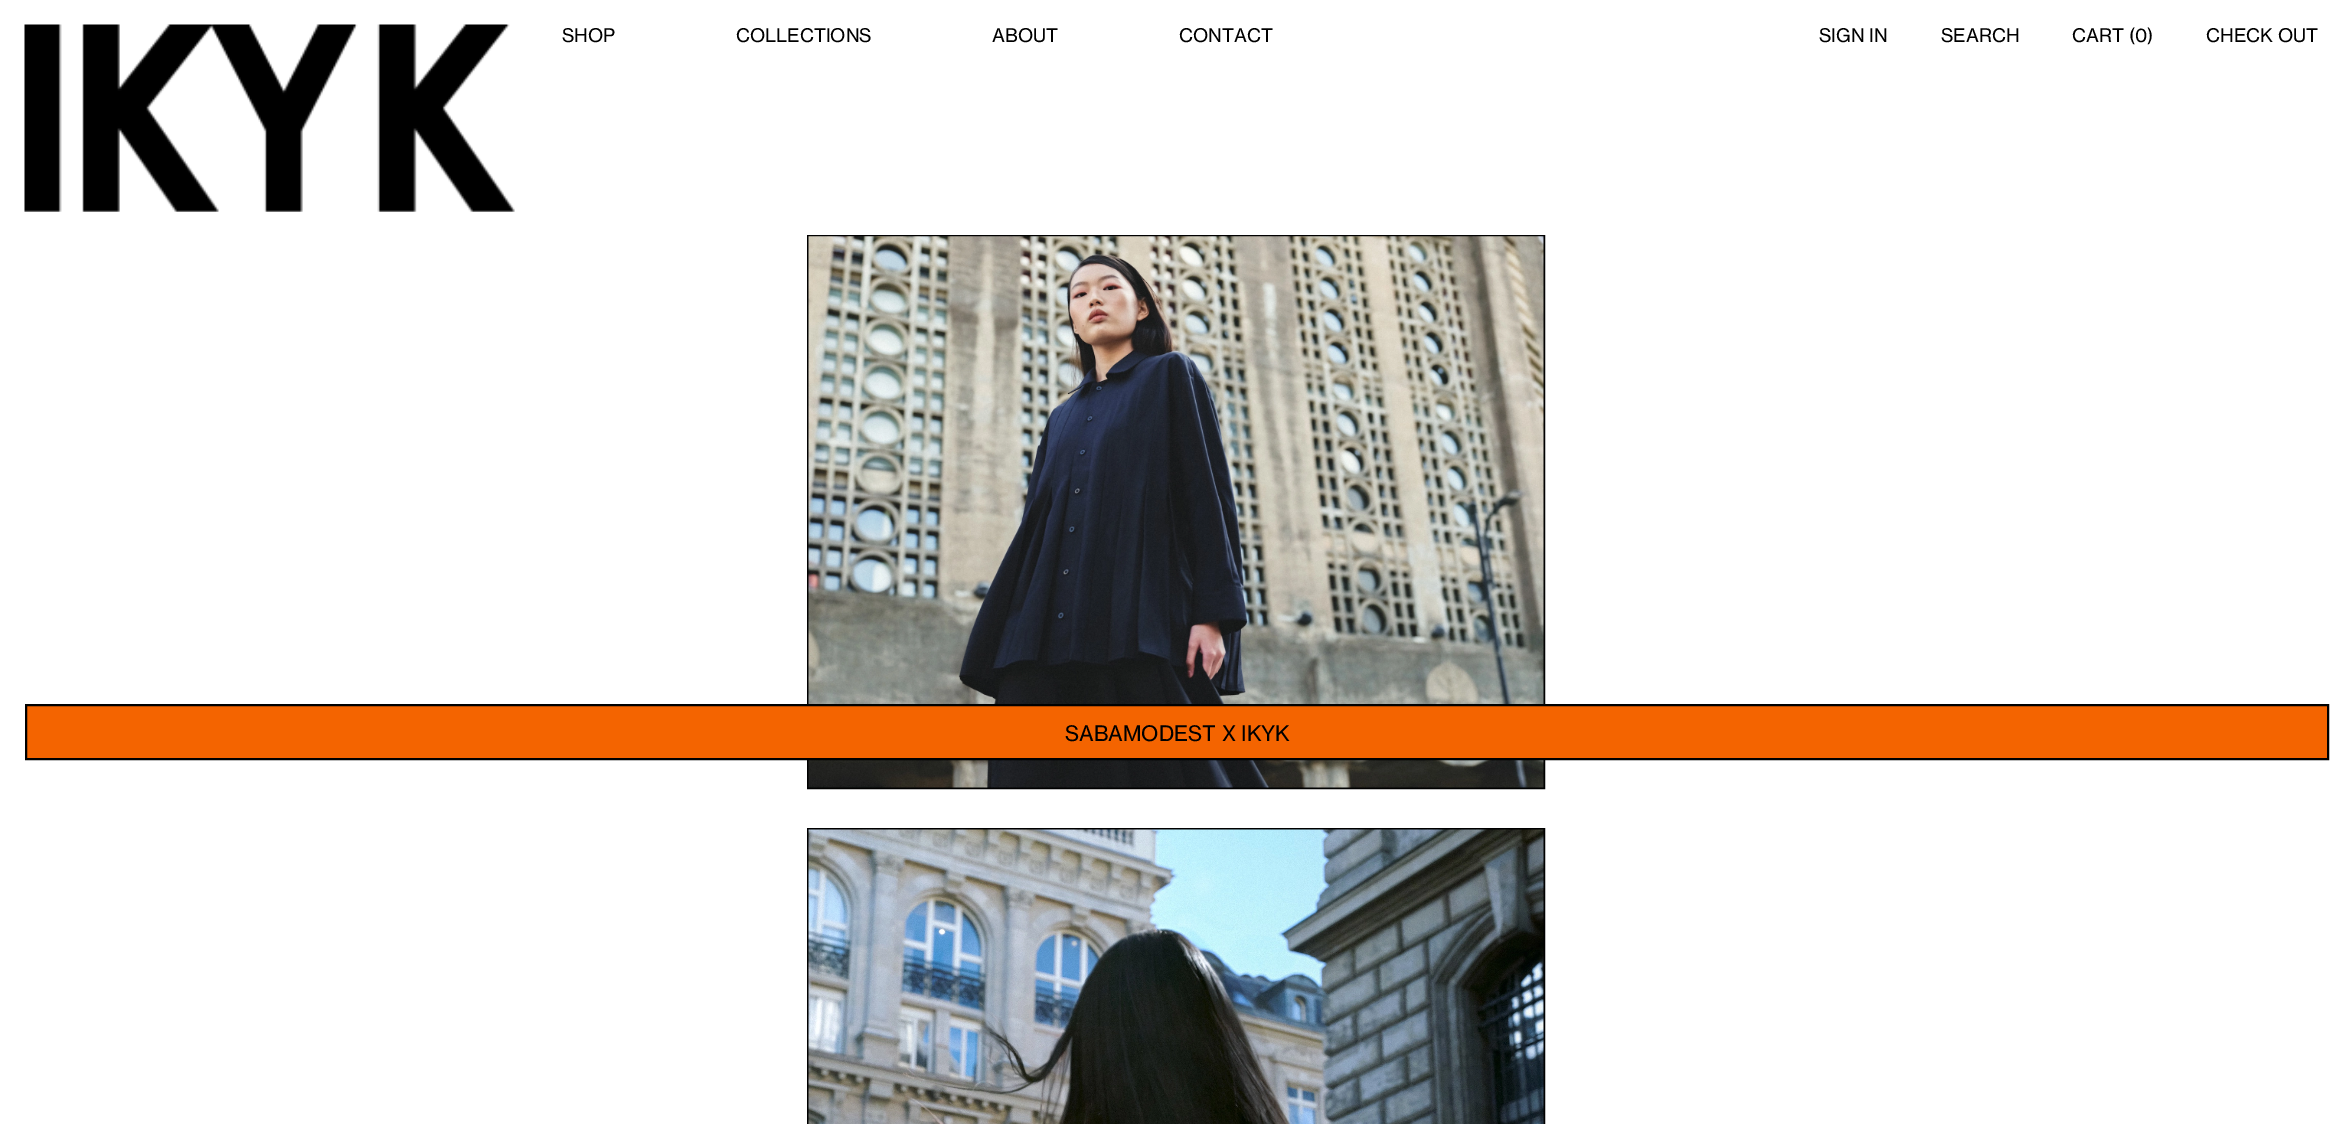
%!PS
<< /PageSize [2348 1124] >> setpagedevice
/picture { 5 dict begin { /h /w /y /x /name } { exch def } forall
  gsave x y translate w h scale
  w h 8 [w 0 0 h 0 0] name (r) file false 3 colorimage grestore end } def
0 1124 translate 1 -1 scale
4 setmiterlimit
1 setgray
0 0 2348 1124 rectfill
(img1.rgb) 24 24 491 188 picture
/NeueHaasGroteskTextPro-Regular [18.5 0 0 -18.5 0 0] selectfont
0 setgray
562 42 moveto (SHOP) show
736 42 moveto (COLLECTIONS) show
992 42 moveto (ABOUT) show
1179 42 moveto (CONTACT) show
1819 42 moveto (SIGN IN) show
1941 42 moveto (SEARCH) show
2072 42 moveto (CART \(0\)) show
2206 42 moveto (CHECK OUT) show
2 setlinewidth
808 236 736 552 rectstroke
(img2.rgb) 808 236 736 552 picture
0.957 0.392 0 setrgbcolor
newpath 26 705 moveto 2328 705 lineto 2328 759 lineto 26 759 lineto closepath gsave fill grestore
0 setgray
stroke
/NeueHaasGroteskTextPro-Regular [21 0 0 -21 0 0] selectfont
1065 741 moveto (SABAMODEST X IKYK) show
808 829 736 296 rectstroke
(img3.rgb) 808 829 736 295 picture
showpage
